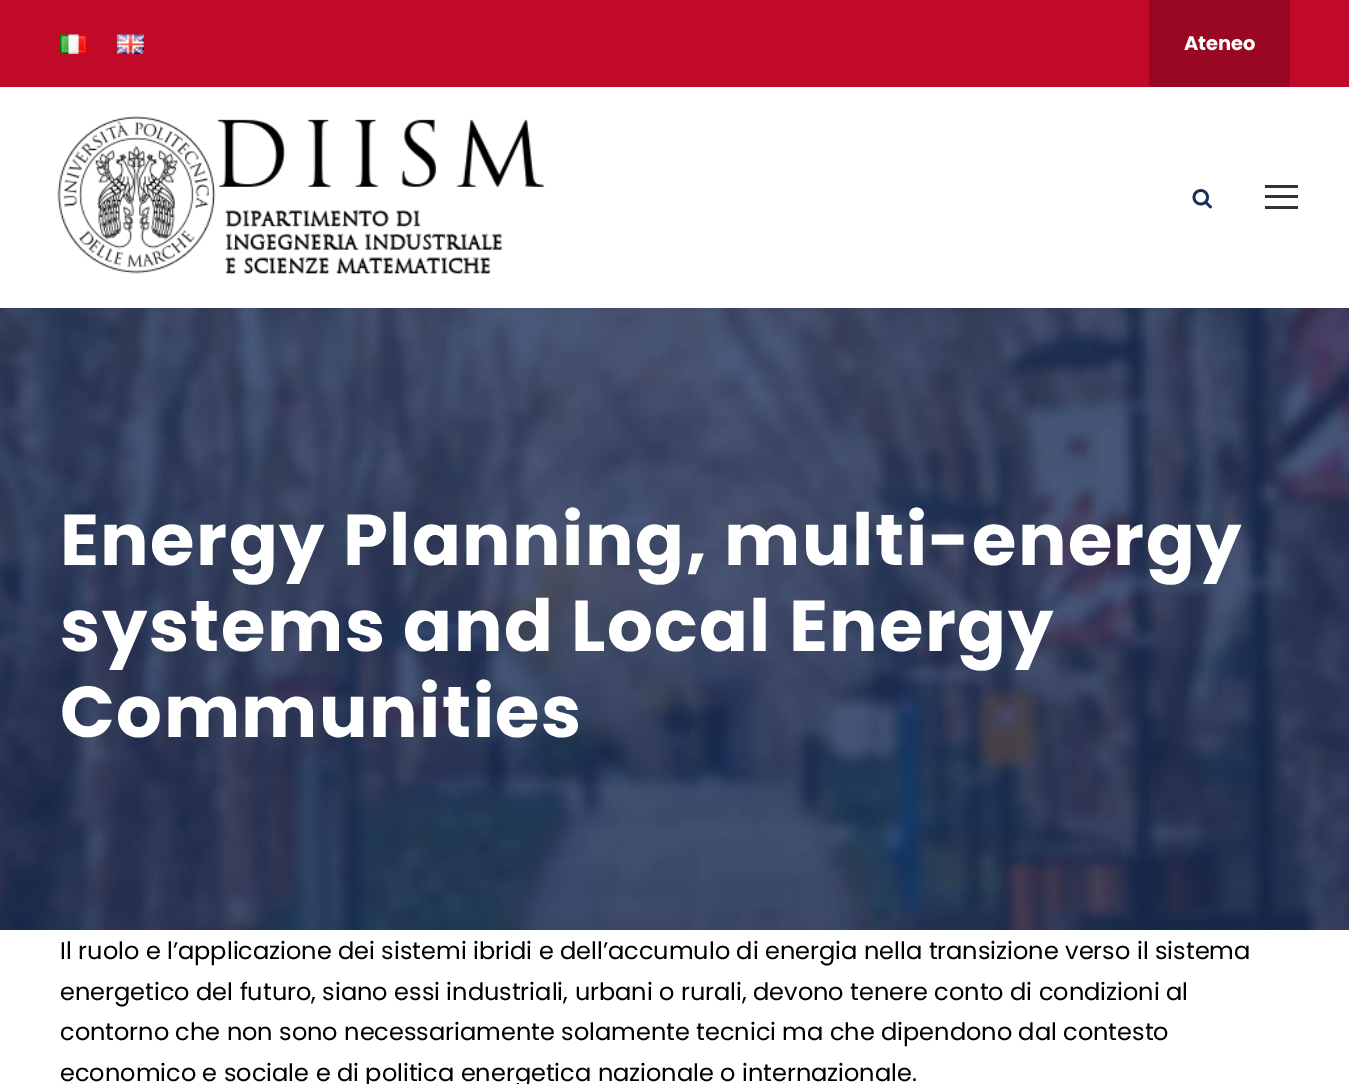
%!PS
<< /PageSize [1349 1084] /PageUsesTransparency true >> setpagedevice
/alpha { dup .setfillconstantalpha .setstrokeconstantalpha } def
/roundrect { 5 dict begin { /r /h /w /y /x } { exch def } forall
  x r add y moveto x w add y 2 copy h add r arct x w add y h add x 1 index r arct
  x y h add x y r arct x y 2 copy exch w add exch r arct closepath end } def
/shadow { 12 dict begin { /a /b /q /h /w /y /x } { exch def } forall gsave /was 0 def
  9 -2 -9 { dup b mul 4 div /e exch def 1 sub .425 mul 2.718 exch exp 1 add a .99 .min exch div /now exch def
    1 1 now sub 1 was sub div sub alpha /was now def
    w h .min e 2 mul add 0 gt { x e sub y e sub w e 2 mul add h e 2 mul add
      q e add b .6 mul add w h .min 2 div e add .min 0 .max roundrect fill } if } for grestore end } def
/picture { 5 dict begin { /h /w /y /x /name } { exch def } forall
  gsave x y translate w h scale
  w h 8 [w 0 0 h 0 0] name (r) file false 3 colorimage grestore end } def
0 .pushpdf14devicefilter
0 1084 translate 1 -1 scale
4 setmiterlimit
1 setgray
0 0 1349 1084 rectfill
0.757 0.035 0.165 setrgbcolor
0 0 1349 87 rectfill
(img1.rgb) 60 34 27 20 picture
(img2.rgb) 117 34 27 20 picture
0.604 0.027 0.133 setrgbcolor
1149 0 141 87 rectfill
/Poppins-Bold [19.5 0 0 -19.5 0 0] selectfont
1 setgray
1184 50 moveto (Ateneo) show
(img5.rgb) 0 308 1349 622 picture
0 setgray
0 89 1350 220 0 1.5 0.1 shadow
1 setgray
0 87 1349 221 rectfill
(img3.rgb) 57 116 488 158 picture
(img4.rgb) 1192 189 20 20 picture
0.2 setgray
1265 185 33 3 rectfill
1265 195 33 3 rectfill
1265 206 33 3 rectfill
/Poppins-Bold [72 0 0 -72 0 0] selectfont
1 setgray
60 565 moveto 1.5 0 (Energy Planning, multi-energy) ashow
60 651 moveto 1.5 0 (systems and Local Energy) ashow
60 737 moveto 1.5 0 (Communities) ashow
/Poppins-Regular [24 0 0 -24 0 0] selectfont
0 setgray
60 959 moveto (Il ruolo e l’applicazione dei sistemi ibridi e dell’accumulo di energia nella transizione verso il sistema) show
60 1000 moveto (energetico del futuro, siano essi industriali, urbani o rurali, devono tenere conto di condizioni al) show
60 1040 moveto (contorno che non sono necessariamente solamente tecnici ma che dipendono dal contesto) show
60 1081 moveto (economico e sociale e di politica energetica nazionale o internazionale.) show
.poppdf14devicefilter showpage
